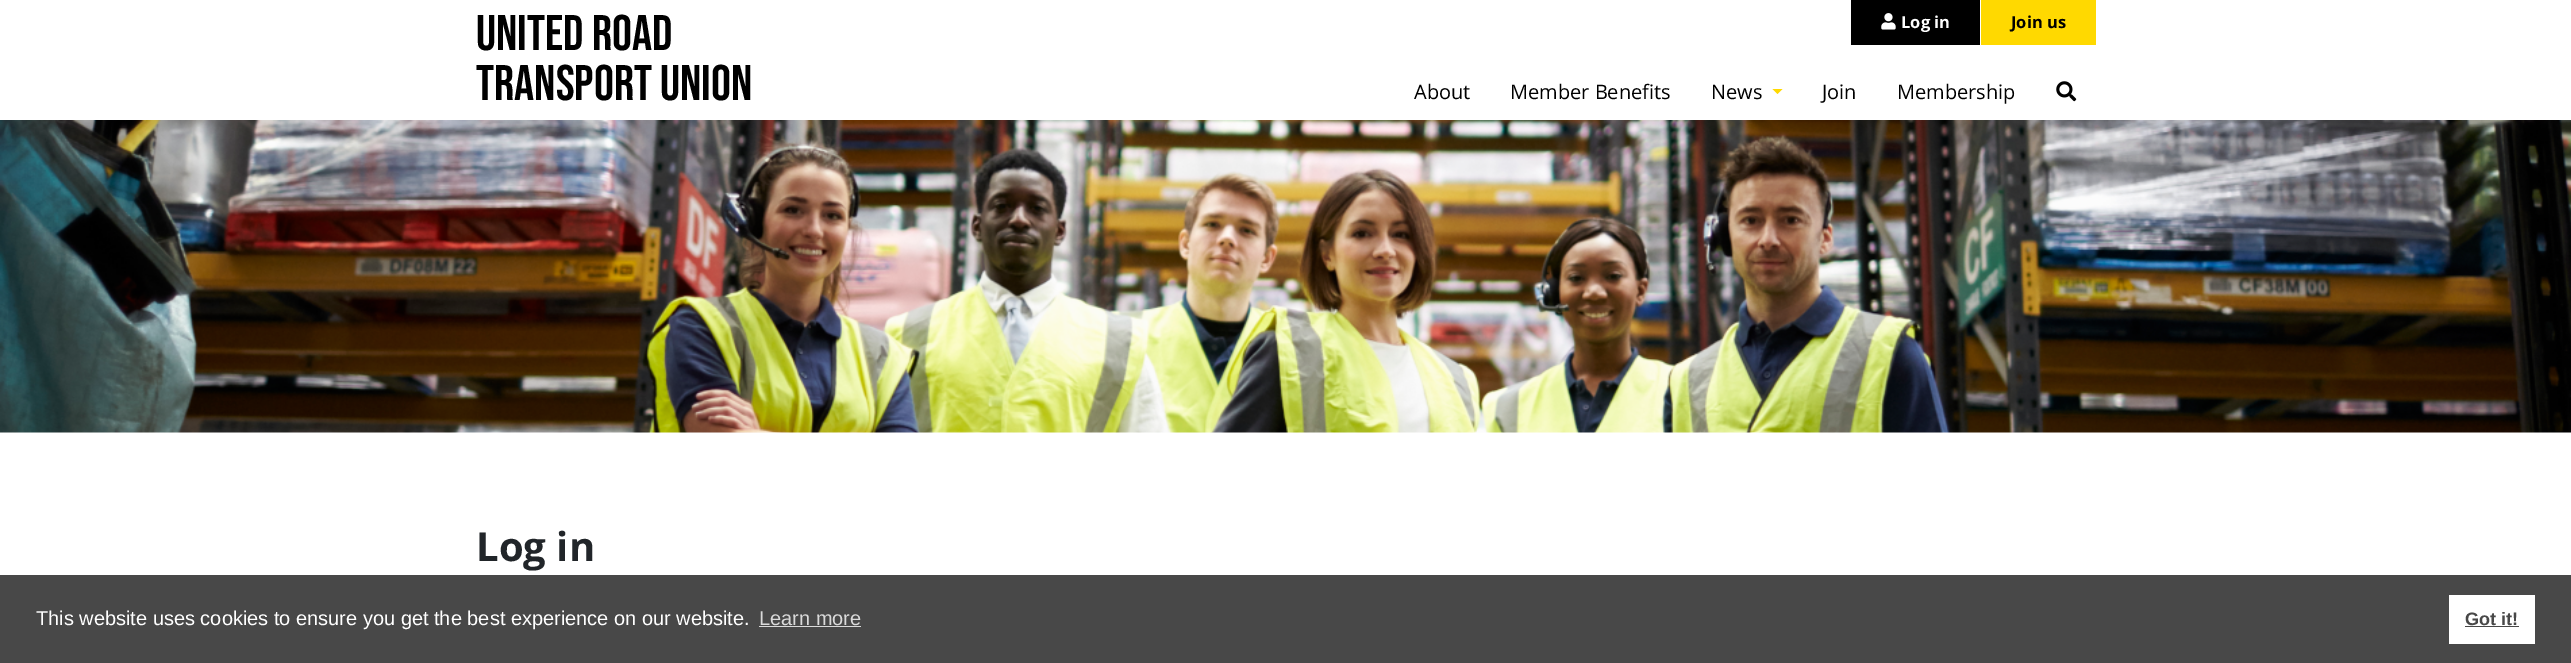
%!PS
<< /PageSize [2571 663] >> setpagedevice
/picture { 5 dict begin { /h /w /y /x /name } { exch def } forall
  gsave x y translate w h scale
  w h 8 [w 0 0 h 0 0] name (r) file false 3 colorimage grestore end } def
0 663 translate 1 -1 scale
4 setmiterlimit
1 setgray
0 0 2571 663 rectfill
/BebasNeue-Regular [50 0 0 -50 0 0] selectfont
0 setgray
476 50 moveto (United Road) show
476 100 moveto (Transport Union) show
1851 0 129 45 rectfill
(img1.rgb) 1881 13 15 17 picture
/OpenSans-Bold [16.5 0 0 -16.5 0 0] selectfont
1 setgray
1901 28 moveto (Log in) show
1 0.851 0 setrgbcolor
1981 0 115 45 rectfill
0 setgray
2011 28 moveto (Join us) show
/OpenSans-Regular [20 0 0 -20 0 0] selectfont
1414 99 moveto (About) show
1510 99 moveto (Member Benefits) show
1711 99 moveto (News) show
1 0.851 0 setrgbcolor
newpath 1772.5 89 moveto 1782.5 89 lineto 1777.5 94 lineto closepath fill
0 setgray
1822 99 moveto (Join) show
1897 99 moveto (Membership) show
(img2.rgb) 2056 81 21 21 picture
(img3.rgb) 0 120 2571 313 picture
/OpenSans-Bold [40 0 0 -40 0 0] selectfont
0.129 0.145 0.161 setrgbcolor
476 561 moveto (Log in) show
0.282 setgray
0 575 2571 88 rectfill
/LiberationSans-Regular [20 0 0 -20 0 0] selectfont
1 setgray
36 625 moveto (This website uses cookies to ensure you get the best experience on our website.) show
0.855 setgray
759 625 moveto (Learn more) show
759 626 102 1 rectfill
1 setgray
2449 595 86 49 rectfill
/LiberationSans-Bold [18 0 0 -18 0 0] selectfont
0.282 setgray
2465 625 moveto (Got it!) show
2465 626 54 1 rectfill
showpage
